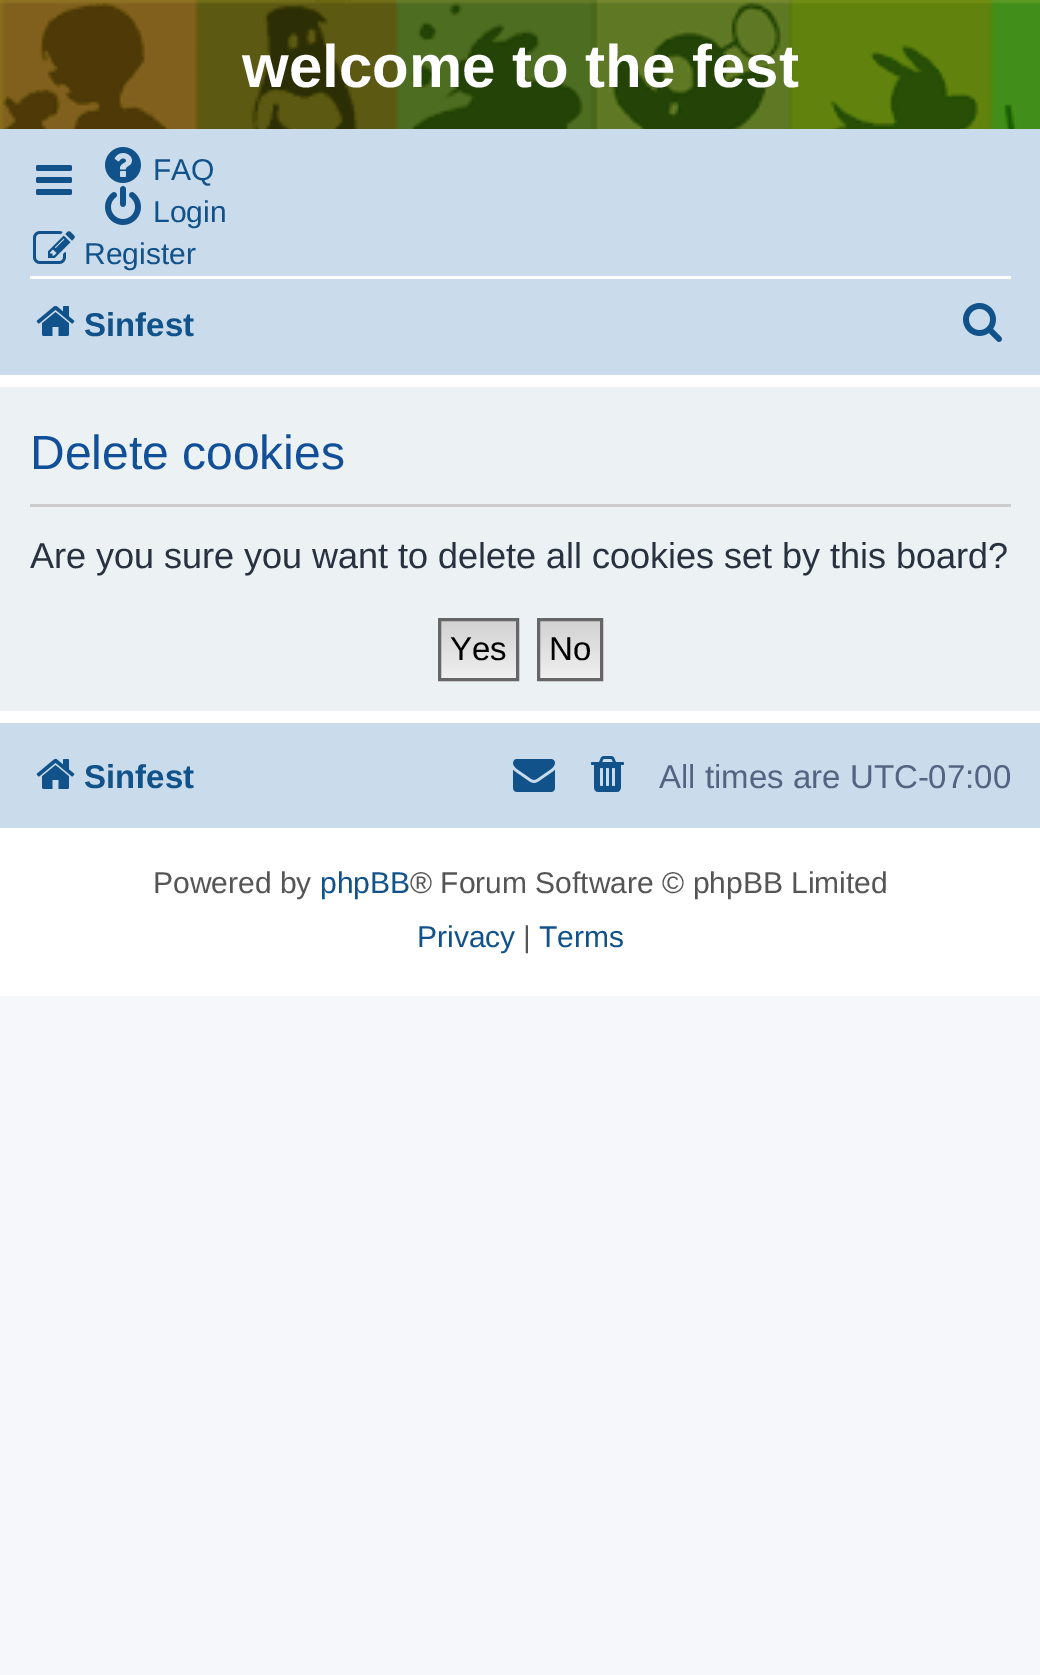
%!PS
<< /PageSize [1040 1675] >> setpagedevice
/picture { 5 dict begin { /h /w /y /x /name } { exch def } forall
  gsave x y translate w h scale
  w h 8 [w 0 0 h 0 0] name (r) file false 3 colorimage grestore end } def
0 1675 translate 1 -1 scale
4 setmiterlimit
0.961 0.969 0.98 setrgbcolor
0 0 1040 1675 rectfill
1 setgray
0 375 1040 621 rectfill
(img1.rgb) 0 0 1040 129 picture
/LiberationSans-Bold [60 0 0 -60 0 0] selectfont
242 87 moveto (welcome to the fest) show
0.792 0.863 0.922 setrgbcolor
0 129 1040 246 rectfill
(img2.rgb) 36 165 36 30 picture
(img3.rgb) 105 147 36 36 picture
/LiberationSans-Regular [30 0 0 -30 0 0] selectfont
0.063 0.322 0.537 setrgbcolor
153 180 moveto (FAQ) show
(img4.rgb) 105 186 36 39 picture
153 222 moveto (Login) show
(img5.rgb) 33 231 42 33 picture
84 264 moveto (Register) show
1 setgray
30 276 981 3 rectfill
(img6.rgb) 36 305 39 31 picture
/LiberationSans-Bold [33 0 0 -33 0 0] selectfont
0.063 0.322 0.537 setrgbcolor
84 336 moveto (Sinfest) show
(img7.rgb) 963 303 39 39 picture
0.925 0.945 0.953 setrgbcolor
0 387 1040 324 rectfill
0.8 setgray
30 504 981 3 rectfill
/LiberationSans-Regular [48 0 0 -48 0 0] selectfont
0.067 0.314 0.596 setrgbcolor
30 469 moveto (Delete cookies) show
/LiberationSans-Regular [36 0 0 -36 0 0] selectfont
0.157 0.192 0.247 setrgbcolor
30 568 moveto (Are you sure you want to delete all cookies set by this board?) show
gsave newpath 441 621 moveto 516 621 lineto 516 678 lineto 441 678 lineto closepath clip newpath
<< /ShadingType 2 /ColorSpace /DeviceRGB /Coords [479 621 479 678] /Extend [true true] /Function << /FunctionType 2 /Domain [0 1] /C0 [0.824 0.824 0.824] /C1 [0.937 0.937 0.937] /N 1 >> >> shfill grestore
0.4 setgray
3 setlinewidth
439.5 619.5 78 60 rectstroke
/LiberationSans-Regular [33 0 0 -33 0 0] selectfont
0 setgray
450 660 moveto (Yes) show
gsave newpath 540 621 moveto 600 621 lineto 600 678 lineto 540 678 lineto closepath clip newpath
<< /ShadingType 2 /ColorSpace /DeviceRGB /Coords [570 621 570 678] /Extend [true true] /Function << /FunctionType 2 /Domain [0 1] /C0 [0.824 0.824 0.824] /C1 [0.937 0.937 0.937] /N 1 >> >> shfill grestore
0.4 setgray
538.5 619.5 63 60 rectstroke
0 setgray
549 660 moveto (No) show
0.792 0.863 0.922 setrgbcolor
0 723 1040 105 rectfill
(img6.rgb) 36 758 39 31 picture
/LiberationSans-Bold [33 0 0 -33 0 0] selectfont
0.063 0.322 0.537 setrgbcolor
84 788 moveto (Sinfest) show
(img8.rgb) 513 759 42 33 picture
(img9.rgb) 591 756 33 36 picture
/LiberationSans-Regular [33 0 0 -33 0 0] selectfont
0.325 0.392 0.51 setrgbcolor
659 788 moveto (All times are UTC-07:00) show
/LiberationSans-Regular [30 0 0 -30 0 0] selectfont
0.333 setgray
153 893 moveto (Powered by) show
0.063 0.322 0.537 setrgbcolor
320 893 moveto (phpBB) show
0.333 setgray
410 893 moveto (® Forum Software © phpBB Limited) show
0.063 0.322 0.537 setrgbcolor
417 947 moveto (Privacy) show
0.333 setgray
523 947 moveto (|) show
0.063 0.322 0.537 setrgbcolor
539 947 moveto (Terms) show
showpage
